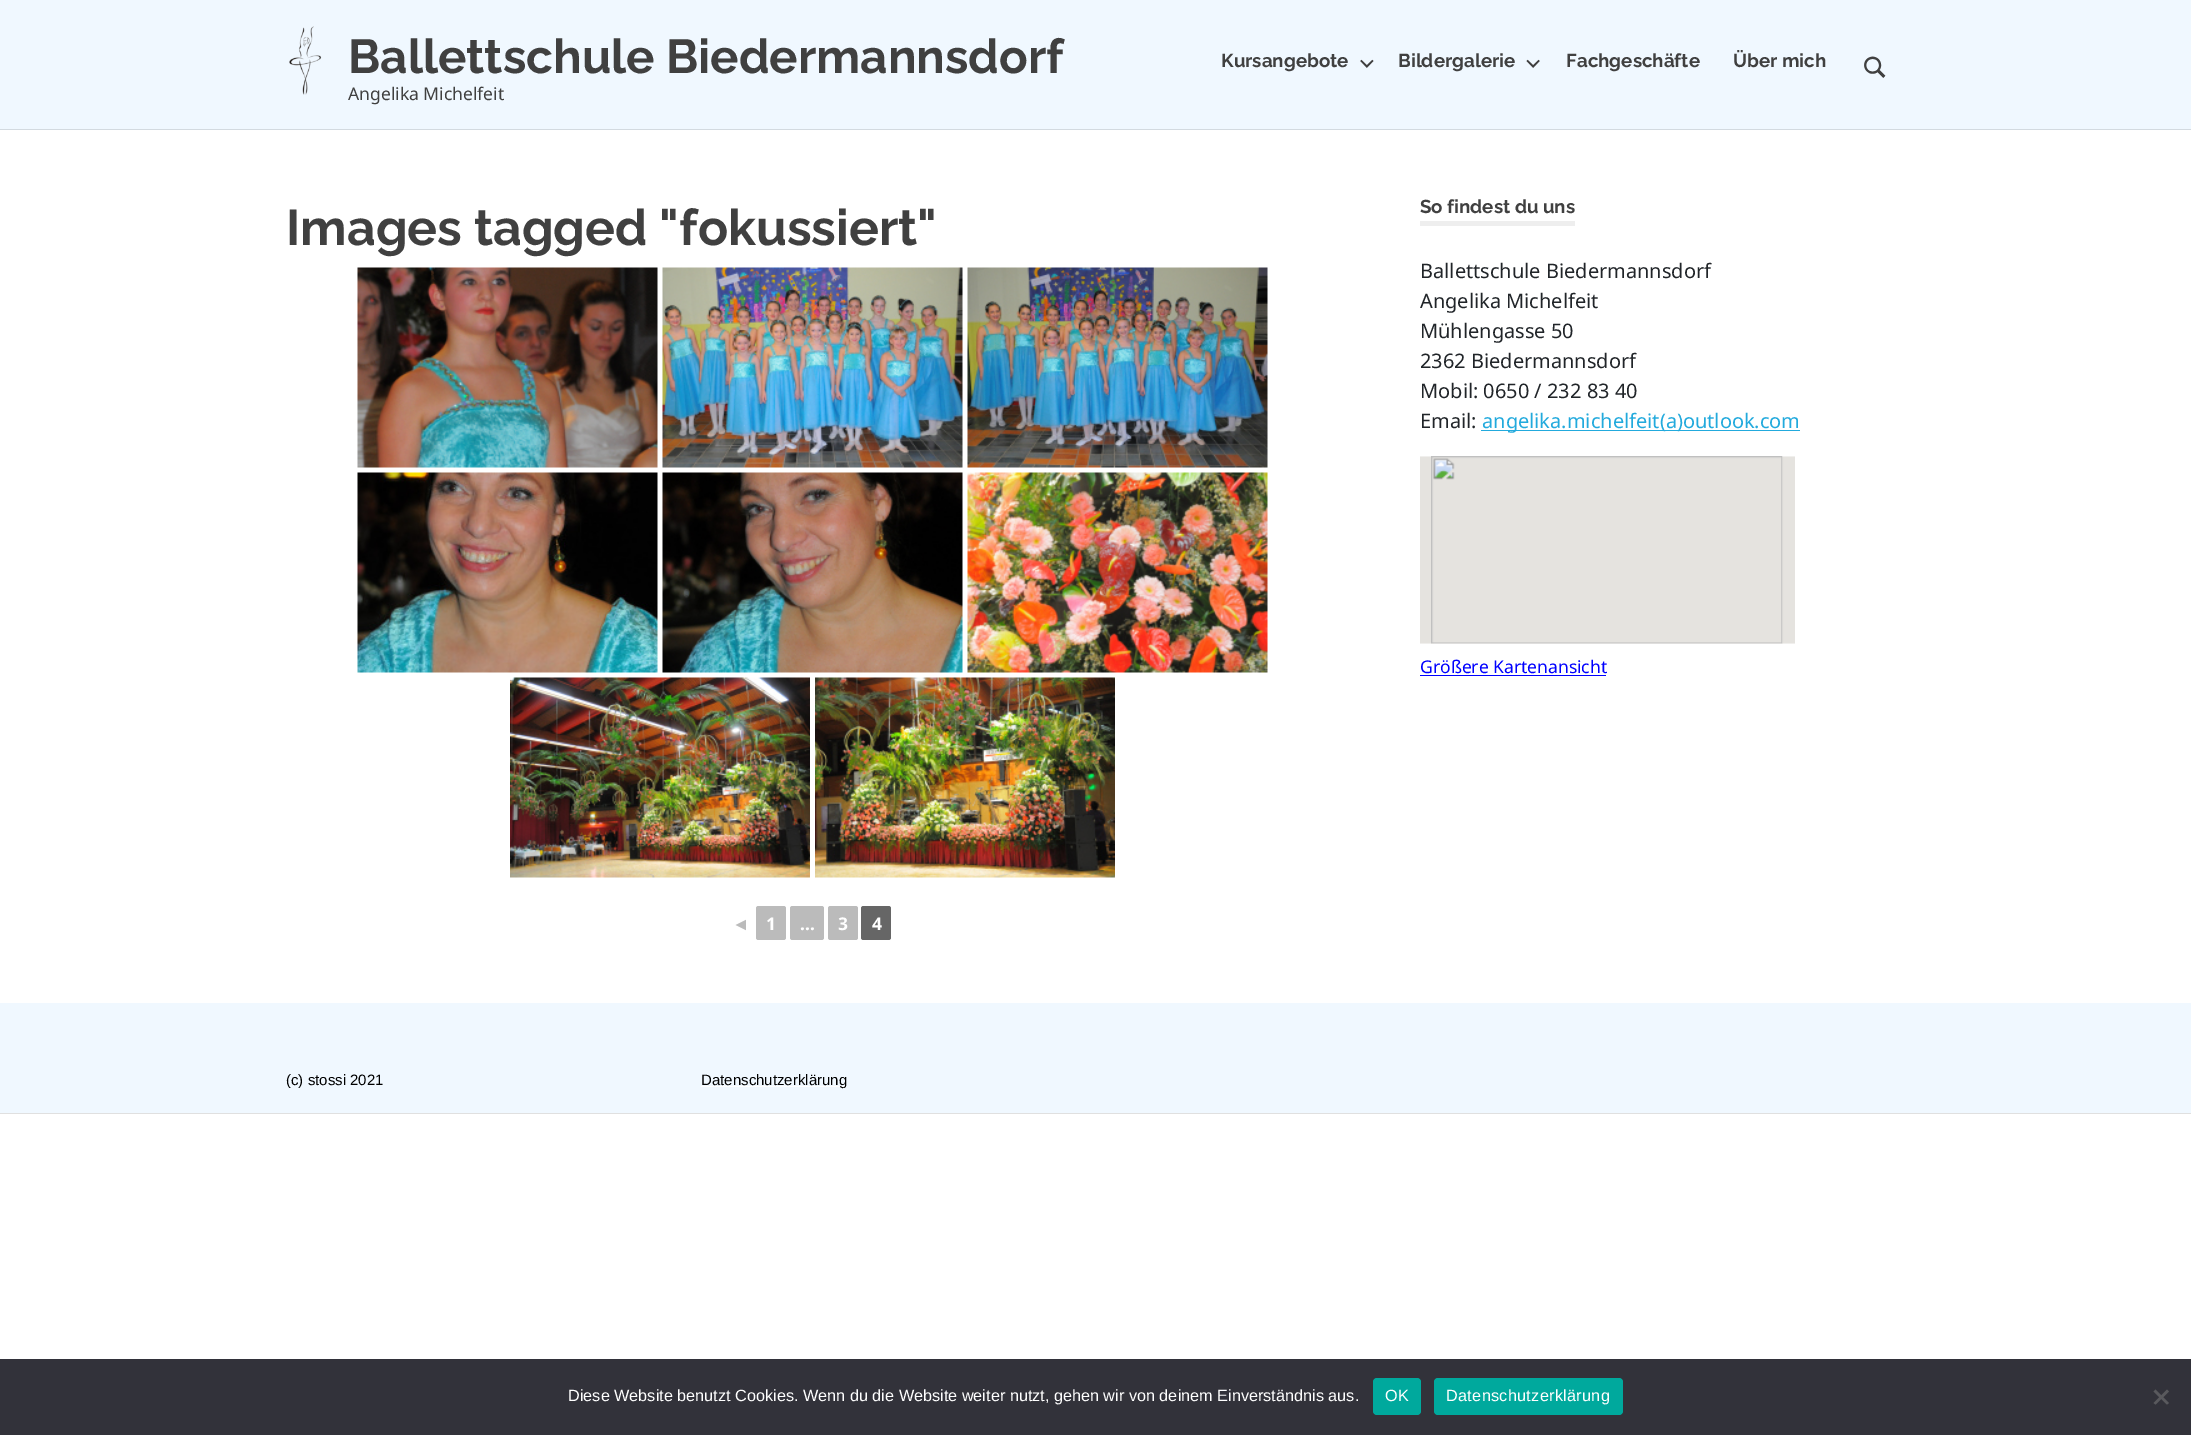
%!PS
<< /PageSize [2191 1435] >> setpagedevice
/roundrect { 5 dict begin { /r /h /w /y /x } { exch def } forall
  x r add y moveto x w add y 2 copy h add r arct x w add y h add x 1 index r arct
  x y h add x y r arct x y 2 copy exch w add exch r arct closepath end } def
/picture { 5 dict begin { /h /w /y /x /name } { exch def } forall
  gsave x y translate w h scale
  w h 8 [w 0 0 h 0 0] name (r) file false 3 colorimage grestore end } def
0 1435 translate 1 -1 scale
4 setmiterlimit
1 setgray
0 0 2191 1435 rectfill
0.941 0.973 1 setrgbcolor
0 0 2191 129 rectfill
0.827 0.855 0.878 setrgbcolor
0 129 2191 1 rectfill
(img1.rgb) 289 26 33 69 picture
/Raleway-Bold [47.5 0 0 -47.5 0 0] selectfont
0.251 setgray
348 73 moveto (Ballettschule Biedermannsdorf) show
/NotoSans-Regular [17.5 0 0 -17.5 0 0] selectfont
348 100 moveto (Angelika Michelfeit) show
/Raleway-Bold [18.75 0 0 -18.75 0 0] selectfont
1221 67 moveto (Kursangebote) show
(img2.rgb) 1360 59 14 9 picture
1398 67 moveto (Bildergalerie) show
(img3.rgb) 1526 59 14 9 picture
1566 67 moveto (Fachgeschäfte) show
1733 67 moveto (Über mich) show
(img4.rgb) 1864 56 22 22 picture
/Raleway-Bold [50 0 0 -50 0 0] selectfont
286 245 moveto (Images tagged "fokussiert") show
(img5.rgb) 357 267 301 201 picture
(img6.rgb) 662 267 301 201 picture
(img7.rgb) 967 267 301 201 picture
(img8.rgb) 357 472 301 201 picture
(img9.rgb) 662 472 301 201 picture
(img10.rgb) 967 472 301 201 picture
(img11.rgb) 510 677 300 201 picture
(img12.rgb) 815 677 300 201 picture
/LiberationSans-Bold [17.5 0 0 -17.5 0 0] selectfont
0.733 setgray
732 930 moveto (◄) show
756 906 30 34 2.5 roundrect fill
/NotoSans-Bold [17.5 0 0 -17.5 0 0] selectfont
1 setgray
766 930 moveto (1) show
0.733 setgray
790 906 34 34 2.5 roundrect fill
1 setgray
800 930 moveto (...) show
0.733 setgray
828 906 30 34 2.5 roundrect fill
1 setgray
838 930 moveto (3) show
0.4 setgray
861 906 30 34 2.5 roundrect fill
1 setgray
872 930 moveto (4) show
0.933 setgray
1420 221 155 5 rectfill
/Raleway-Bold [18.75 0 0 -18.75 0 0] selectfont
0.251 setgray
1420 213 moveto (So findest du uns) show
/NotoSans-Regular [20 0 0 -20 0 0] selectfont
0.129 0.145 0.161 setrgbcolor
1420 278 moveto (Ballettschule Biedermannsdorf) show
1420 308 moveto (Angelika Michelfeit) show
1420 338 moveto (Mühlengasse 50) show
1420 368 moveto (2362 Biedermannsdorf) show
1420 398 moveto (Mobil: 0650 / 232 83 40) show
1420 428 moveto (Email:) show
0.133 0.667 0.867 setrgbcolor
1481 430 319 1 rectfill
1482 428 moveto (angelika.michelfeit\(a\)outlook.com) show
(img13.rgb) 1420 456 375 188 picture
/NotoSans-Regular [17.5 0 0 -17.5 0 0] selectfont
0 0 1 setrgbcolor
1420 673 moveto (Größere Kartenansicht) show
1420 675 186 1 rectfill
0.941 0.973 1 setrgbcolor
0 1003 2191 110 rectfill
/LiberationSans-Regular [15 0 0 -15 0 0] selectfont
0 setgray
286 1085 moveto (\(c\) stossi 2021) show
1 setgray
701 1086 145 1 rectfill
0 setgray
701 1085 moveto (Datenschutzerklärung) show
0.878 setgray
0 1113 2191 1 rectfill
0.196 0.196 0.227 setrgbcolor
0 1359 2191 76 rectfill
/LiberationSans-Regular [16.25 0 0 -16.25 0 0] selectfont
1 setgray
568 1401 moveto (Diese Website benutzt Cookies. Wenn du die Website weiter nutzt, gehen wir von deinem Einverständnis aus.) show
0 0.663 0.616 setrgbcolor
1373 1378 48 37 4 roundrect fill
1 setgray
1385 1401 moveto 0.3 0 (OK) ashow
0 0.663 0.616 setrgbcolor
1434 1378 189 37 4 roundrect fill
1 setgray
1446 1401 moveto 0.3 0 (Datenschutzerklärung) ashow
0.349 0.349 0.365 setrgbcolor
newpath 2167 1389.5 moveto 2169 1391.5 lineto 2155.5 1404.5 lineto 2153.5 1403 lineto closepath fill
newpath 2153.5 1391.5 moveto 2155.5 1389.5 lineto 2169 1403 lineto 2167 1404.5 lineto closepath fill
showpage
